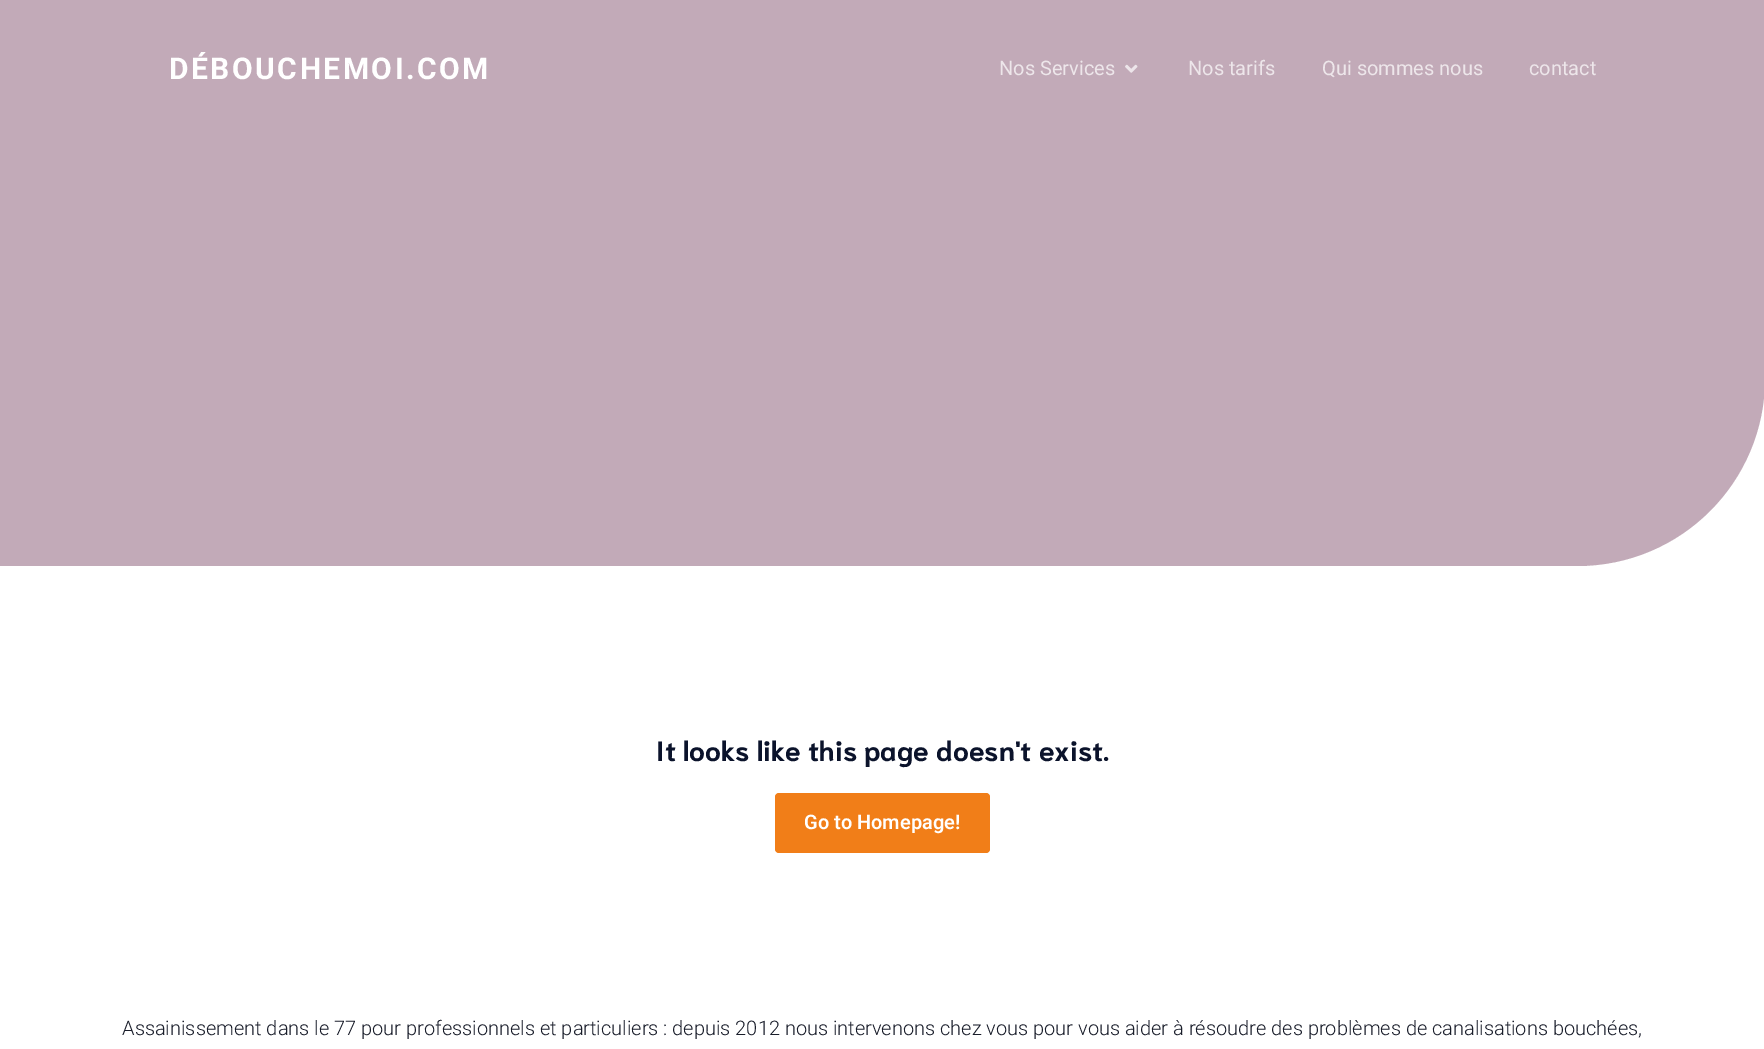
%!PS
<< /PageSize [1764 1049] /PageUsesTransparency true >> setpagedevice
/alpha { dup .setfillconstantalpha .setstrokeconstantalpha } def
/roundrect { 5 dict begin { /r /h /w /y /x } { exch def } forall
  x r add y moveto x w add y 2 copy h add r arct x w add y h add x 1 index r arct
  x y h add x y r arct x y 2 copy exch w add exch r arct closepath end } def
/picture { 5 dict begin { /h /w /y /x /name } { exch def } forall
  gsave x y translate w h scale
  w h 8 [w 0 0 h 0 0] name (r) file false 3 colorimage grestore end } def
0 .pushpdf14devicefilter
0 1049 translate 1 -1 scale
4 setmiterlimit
1 setgray
0 0 1764 1049 rectfill
0.741 setgray
newpath 0 0 moveto 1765 0 lineto 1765 378 lineto 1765 482 1681 566 1577 566 curveto 0 566 lineto closepath fill
0.1 alpha
0.929 0.004 0.541 setrgbcolor
newpath 0 0 moveto 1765 0 lineto 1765 378 lineto 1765 482 1681 566 1577 566 curveto 0 566 lineto closepath fill
/Roboto-Bold [30 0 0 -30 0 0] selectfont
1 alpha
1 setgray
169 79 moveto 2.5 0 (DÉBOUCHEMOI.COM) ashow
/Roboto-Regular [20 0 0 -20 0 0] selectfont
0.929 0.902 0.918 setrgbcolor
999 75 moveto (Nos Services) show
(img1.rgb) 1125 64 13 9 picture
1188 75 moveto (Nos tarifs) show
1322 75 moveto (Qui sommes nous) show
1529 75 moveto (contact) show
/Niramit-Bold [28 0 0 -28 0 0] selectfont
0.043 0.075 0.169 setrgbcolor
656 761 moveto (It looks like this page doesn't exist.) show
0.945 0.494 0.094 setrgbcolor
775 793 215 60 4 roundrect fill
/Roboto-SemiBold [20 0 0 -20 0 0] selectfont
1 setgray
804 829 moveto (Go to Homepage!) show
/Roboto-Light [20 0 0 -20 0 0] selectfont
0.098 0.114 0.165 setrgbcolor
122 1035 moveto (Assainissement dans le 77 pour professionnels et particuliers : depuis 2012 nous intervenons chez vous pour vous aider à résoudre des problèmes de canalisations bouchées,) show
.poppdf14devicefilter showpage
